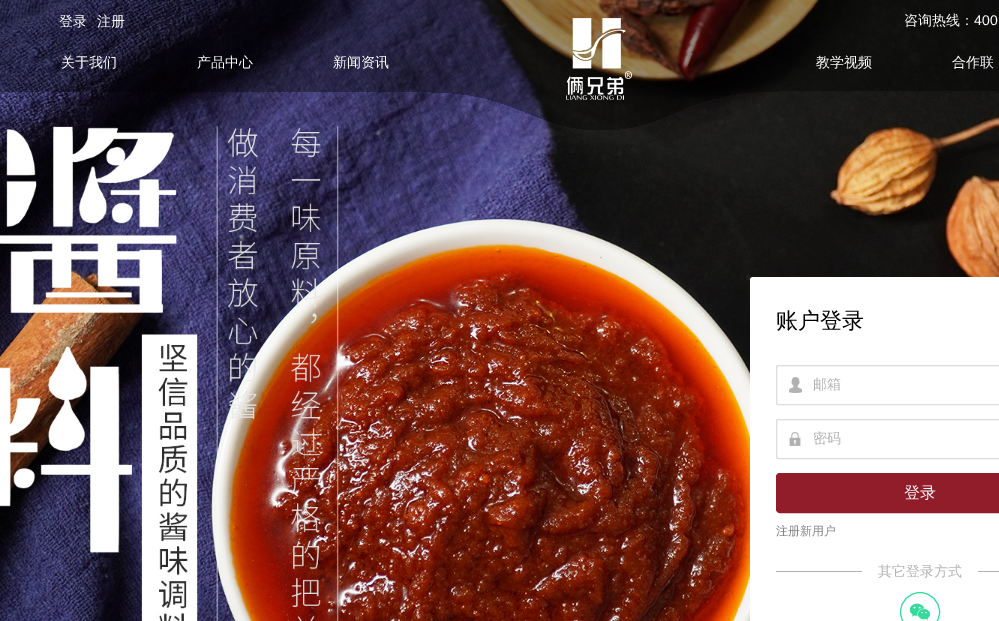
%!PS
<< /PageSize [999 621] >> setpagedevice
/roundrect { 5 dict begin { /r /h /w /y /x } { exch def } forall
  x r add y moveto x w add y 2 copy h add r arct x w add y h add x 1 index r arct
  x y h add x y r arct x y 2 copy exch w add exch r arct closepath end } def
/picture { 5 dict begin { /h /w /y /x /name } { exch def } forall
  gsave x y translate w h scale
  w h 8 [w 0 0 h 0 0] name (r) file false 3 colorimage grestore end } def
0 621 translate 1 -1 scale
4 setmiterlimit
1 setgray
0 0 999 621 rectfill
(img3.rgb) 0 0 999 621 picture
(img1.rgb) 0 0 999 130 picture
/WenQuanYiZenHei-Medium [14 0 0 -14 0 0] selectfont
59 26 moveto (登录) show
97 26 moveto (注册) show
(img2.rgb) 566 18 66 82 picture
904 25 moveto (咨询热线：) show
/LiberationSans-Regular [14 0 0 -14 0 0] selectfont
974 25 moveto (400) show
/WenQuanYiZenHei-Medium [14 0 0 -14 0 0] selectfont
61 67 moveto (关于我们) show
197 67 moveto (产品中心) show
333 67 moveto (新闻资讯) show
816 67 moveto (教学视频) show
952 67 moveto (合作联) show
750 277 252 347 3 roundrect fill
/WenQuanYiZenHei-Medium [22 0 0 -22 0 0] selectfont
0 setgray
776 328 moveto (账户登录) show
0.855 0.867 0.886 setrgbcolor
776.5 365.5 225 39 1.5 roundrect stroke
(img4.rgb) 789 377 14 16 picture
/WenQuanYiZenHei-Medium [14 0 0 -14 0 0] selectfont
0.702 setgray
813 389 moveto (邮箱) show
0.855 0.867 0.886 setrgbcolor
776.5 419.5 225 39 1.5 roundrect stroke
(img5.rgb) 789 432 12 14 picture
0.702 setgray
813 443 moveto (密码) show
0.569 0.11 0.165 setrgbcolor
776.5 473.5 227 39 3.5 roundrect gsave fill grestore
stroke
/WenQuanYiZenHei-Medium [16 0 0 -16 0 0] selectfont
1 setgray
904 498 moveto (登录) show
/WenQuanYiZenHei-Medium [12 0 0 -12 0 0] selectfont
0.518 0.522 0.522 setrgbcolor
776 535 moveto (注册新用户) show
0.702 setgray
776 571 86 1 rectfill
/WenQuanYiZenHei-Medium [14 0 0 -14 0 0] selectfont
878 576 moveto (其它登录方式) show
978 571 21 1 rectfill
0.208 0.859 0.616 setrgbcolor
newpath 920 612 19.5 0 360 arc closepath stroke
(img6.rgb) 909 603 22 17 picture
showpage
